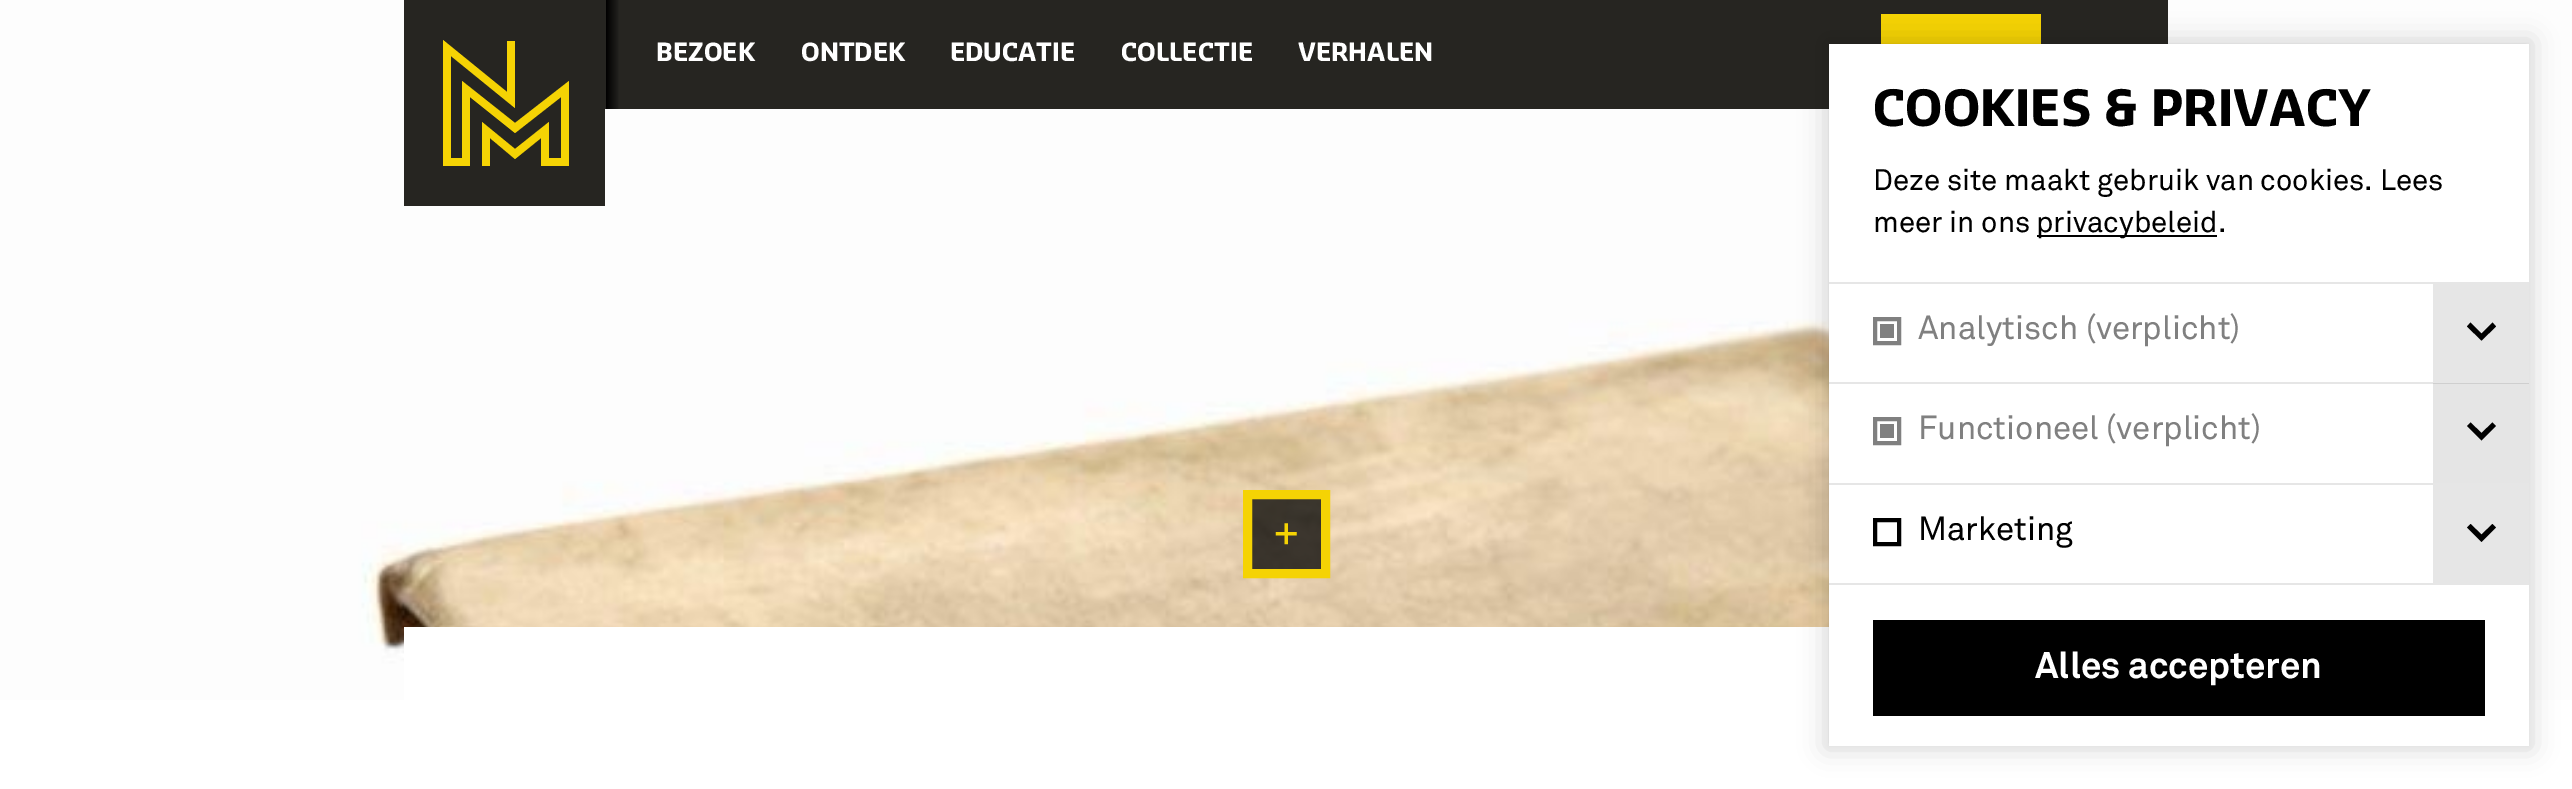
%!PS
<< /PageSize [2572 789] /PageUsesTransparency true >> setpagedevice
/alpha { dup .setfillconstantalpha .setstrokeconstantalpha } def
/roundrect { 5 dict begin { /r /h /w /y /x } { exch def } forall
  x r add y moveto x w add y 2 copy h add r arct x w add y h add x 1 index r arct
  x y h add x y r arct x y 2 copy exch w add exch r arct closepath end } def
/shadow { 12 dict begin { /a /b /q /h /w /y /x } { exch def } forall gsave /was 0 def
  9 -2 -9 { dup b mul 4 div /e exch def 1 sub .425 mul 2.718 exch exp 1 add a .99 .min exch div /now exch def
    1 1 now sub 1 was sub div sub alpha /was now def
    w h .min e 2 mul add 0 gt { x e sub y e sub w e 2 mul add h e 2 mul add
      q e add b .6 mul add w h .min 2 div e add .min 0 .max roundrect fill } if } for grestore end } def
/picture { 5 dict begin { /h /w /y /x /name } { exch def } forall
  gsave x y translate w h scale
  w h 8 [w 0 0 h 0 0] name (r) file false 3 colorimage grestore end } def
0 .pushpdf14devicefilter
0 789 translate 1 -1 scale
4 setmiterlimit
1 setgray
0 0 2572 789 rectfill
(img1.rgb) 0 0 2572 700 picture
0.75 alpha
0 setgray
newpath 1247.5 494.5 moveto 1325.5 494.5 lineto 1325.5 573.5 lineto 1247.5 573.5 lineto closepath fill
1 alpha
0.961 0.827 0.016 setrgbcolor
9 setlinewidth
newpath 1247.5 494.5 moveto 1325.5 494.5 lineto 1325.5 573.5 lineto 1247.5 573.5 lineto closepath stroke
(img2.rgb) 1275 523 22 22 picture
1 setgray
404 627 1764 73 rectfill
0.149 0.145 0.129 setrgbcolor
404 0 201 206 rectfill
0.961 0.827 0.016 setrgbcolor
newpath 443 166 moveto 470 166 lineto 470 97 lineto 515 133 lineto 561 97 lineto 561 158 lineto 549 158 lineto 549 122 lineto 515 149 lineto 482 122 lineto 482 166 lineto 490 166 lineto 490 138 lineto 515 159 lineto 541 138 lineto 541 166 lineto 569 166 lineto 569 81 lineto 515 123 lineto 462 81 lineto 462 158 lineto 451 158 lineto 451 56 lineto 515 108 lineto 515 41 lineto 507 41 lineto 507 92 lineto 443 40 lineto closepath eofill
0.149 0.145 0.129 setrgbcolor
605 0 1563 109 rectfill
gsave newpath 606 0 moveto 619 0 lineto 619 109 lineto 606 109 lineto closepath clip newpath
<< /ShadingType 2 /ColorSpace /DeviceRGB /Coords [606 54 620 54] /Extend [true true] /Function << /FunctionType 2 /Domain [0 1] /C0 [0 0 0] /C1 [0.149 0.145 0.129] /N 1 >> >> shfill grestore
0.961 0.827 0.016 setrgbcolor
1881 14 160 30 rectfill
/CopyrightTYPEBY-Bold [24.5 0 0 -24.5 0 0] selectfont
1 setgray
656 61 moveto (BEZOEK) show
801 61 moveto (ONTDEK) show
950 61 moveto (EDUCATIE) show
1121 61 moveto (COLLECTIE) show
1298 61 moveto (VERHALEN) show
0 setgray
1829 44 700 702 0 2.5 0.05 shadow
1825 40 707 709 0 13 0.15 shadow
1 setgray
1829 44 700 702 rectfill
/CopyrightTYPEBY-Bold [49 0 0 -49 0 0] selectfont
0 setgray
1873 126 moveto (COOKIES & PRIVACY) show
/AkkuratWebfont-Regular [29.4 0 0 -29.4 0 0] selectfont
1873 190 moveto (Deze site maakt gebruik van cookies. Lees) show
1873 232 moveto (meer in ons) show
2037 235 180 2 rectfill
2036 232 moveto (privacybeleid.) show
0.902 setgray
1829 583 700 2 rectfill
1829 282 700 2 rectfill
0.502 setgray
4 setlinewidth
1875 319 24 24 rectstroke
1880 324 14 14 rectfill
/AkkuratWebfont-Regular [33 0 0 -33 0 0] selectfont
1918 339 moveto (Analytisch \(verplicht\)) show
0.902 setgray
2433 284 96 98 rectfill
0 setgray
newpath 2492.5 322.5 moveto 2496 326.5 lineto 2481.5 340.5 lineto 2467 326.5 lineto 2470.5 322.5 lineto 2481.5 333.5 lineto closepath fill
0.902 setgray
1829 382 700 2 rectfill
0.502 setgray
1875 419 24 24 rectstroke
1880 424 14 14 rectfill
1918 439 moveto (Functioneel \(verplicht\)) show
0.1 alpha
0 setgray
2433 383 96 100 rectfill
1 alpha
newpath 2492.5 422.5 moveto 2496 426 lineto 2481.5 440.5 lineto 2467 426 lineto 2470.5 422.5 lineto 2481.5 433 lineto closepath fill
0.902 setgray
1829 483 700 2 rectfill
0 setgray
1875 520 24 24 rectstroke
1918 540 moveto (Marketing) show
0.902 setgray
2433 485 96 98 rectfill
0 setgray
newpath 2492.5 524 moveto 2496 527.5 lineto 2481.5 542 lineto 2467 527.5 lineto 2470.5 524 lineto 2481.5 534.5 lineto closepath fill
1873 620 612 96 rectfill
/AkkuratWebfont-Bold [36.75 0 0 -36.75 0 0] selectfont
1 setgray
2035 678 moveto (Alles accepteren) show
.poppdf14devicefilter showpage
